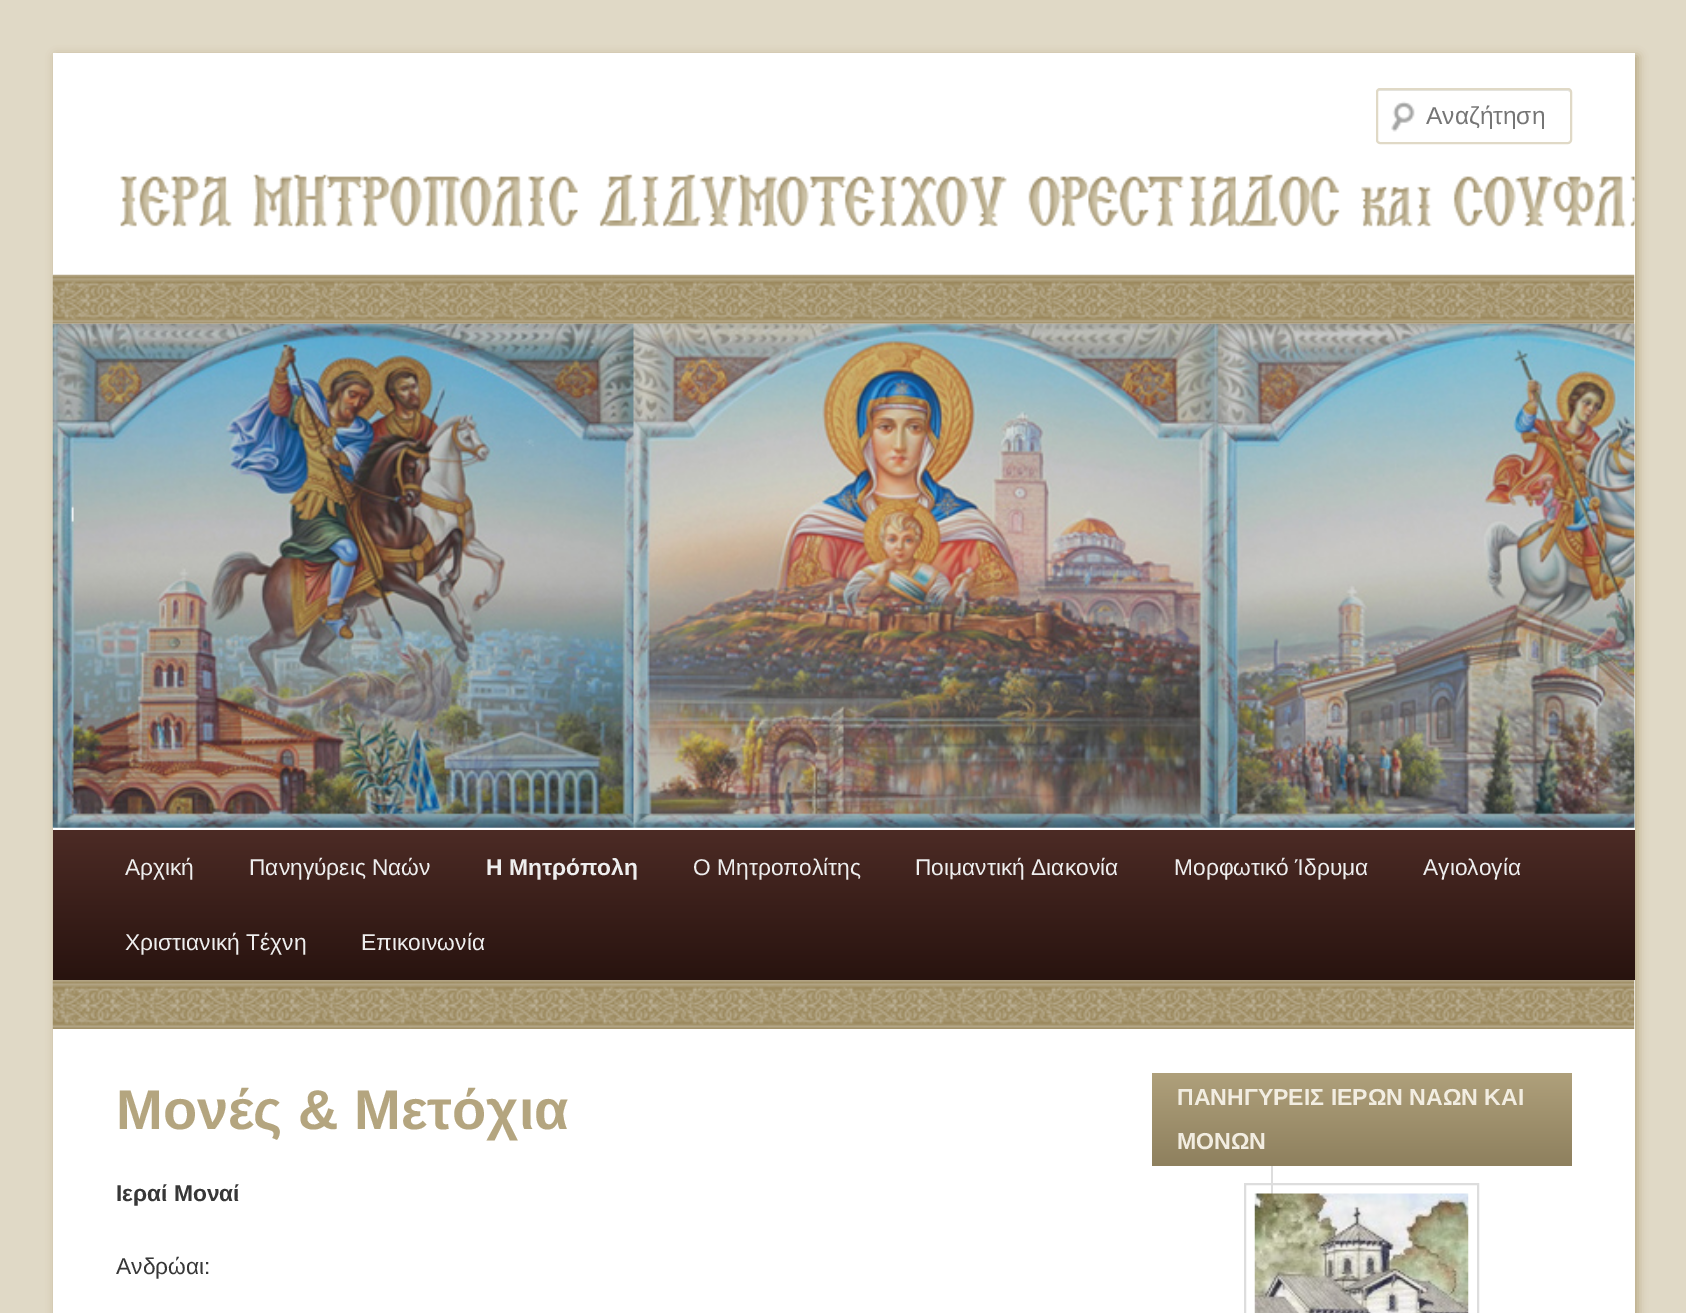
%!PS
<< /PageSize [1686 1313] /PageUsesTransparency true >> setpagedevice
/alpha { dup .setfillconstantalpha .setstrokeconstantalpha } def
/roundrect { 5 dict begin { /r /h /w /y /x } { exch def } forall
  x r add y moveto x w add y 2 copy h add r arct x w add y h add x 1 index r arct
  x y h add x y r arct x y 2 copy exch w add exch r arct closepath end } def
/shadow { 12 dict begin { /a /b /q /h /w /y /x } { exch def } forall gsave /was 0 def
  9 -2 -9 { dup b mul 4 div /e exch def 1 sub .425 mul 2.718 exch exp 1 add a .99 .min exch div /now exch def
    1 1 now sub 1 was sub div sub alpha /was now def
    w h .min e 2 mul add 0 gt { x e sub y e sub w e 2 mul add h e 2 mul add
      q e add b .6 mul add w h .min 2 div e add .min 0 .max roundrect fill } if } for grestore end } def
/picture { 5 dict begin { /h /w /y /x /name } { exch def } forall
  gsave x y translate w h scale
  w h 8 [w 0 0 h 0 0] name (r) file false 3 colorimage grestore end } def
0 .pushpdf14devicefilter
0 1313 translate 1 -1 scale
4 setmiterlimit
0.878 0.851 0.776 setrgbcolor
0 0 1686 1313 rectfill
0.71 0.647 0.502 setrgbcolor
56 56 1582 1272 0 5 1 shadow
1 setgray
53 53 1582 1260 rectfill
(img1.rgb) 1391 101 24 31 picture
0.902 setgray
newpath 1379 91 moveto 1568 91 lineto 1570 92 lineto 1570 93 lineto 1570 91 1570 89 1568 89 curveto 1379 89 lineto 1377 89 1377 91 1377 93 curveto 1377 92 1378 91 1379 91 curveto closepath fill
0.878 0.851 0.776 setrgbcolor
2 setlinewidth
1377 89 194 54 3 roundrect stroke
/LiberationSans-Regular [24.5 0 0 -24.5 0 0] selectfont
0.459 setgray
1426 124 moveto (Αναζήτηση) show
(img2.rgb) 120 174 1515 54 picture
(img3.rgb) 52 274 1583 50 picture
(img4.rgb) 52 323 1583 505 picture
gsave newpath 53 830 moveto 1635 830 lineto 1635 980 lineto 53 980 lineto closepath clip newpath
<< /ShadingType 2 /ColorSpace /DeviceRGB /Coords [844 829 844 980] /Extend [true true] /Function << /FunctionType 2 /Domain [0 1] /C0 [0.298 0.169 0.145] /C1 [0.157 0.075 0.059] /N 1 >> >> shfill grestore
/LiberationSans-Regular [22.75 0 0 -22.75 0 0] selectfont
0.933 setgray
125 875 moveto (Αρχική) show
249 875 moveto (Πανηγύρεις Ναών) show
/LiberationSans-Bold [22.75 0 0 -22.75 0 0] selectfont
486 875 moveto (H Mητρόπολη) show
/LiberationSans-Regular [22.75 0 0 -22.75 0 0] selectfont
693 875 moveto (Ο Mητροπολίτης) show
915 875 moveto (Ποιμαντική Διακονία) show
1174 875 moveto (Μορφωτικό Ίδρυμα) show
1423 875 moveto (Αγιολογία) show
125 950 moveto (Χριστιανική Τέχνη) show
361 950 moveto (Επικοινωνία) show
(img5.rgb) 52 980 1583 49 picture
0.867 setgray
1271 1166 2 28 rectfill
/LiberationSans-Bold [56 0 0 -56 0 0] selectfont
0.706 0.647 0.498 setrgbcolor
116 1129 moveto (Μονές & Μετόχια) show
/LiberationSans-Bold [22.75 0 0 -22.75 0 0] selectfont
0.216 setgray
116 1201 moveto (Ιεραί Μοναί) show
/LiberationSans-Regular [22.75 0 0 -22.75 0 0] selectfont
116 1274 moveto (Ανδρώαι:) show
gsave newpath 1152 1073 moveto 1572 1073 lineto 1572 1166 lineto 1152 1166 lineto closepath clip newpath
<< /ShadingType 2 /ColorSpace /DeviceRGB /Coords [1362 1073 1362 1166] /Extend [true true] /Function << /FunctionType 2 /Domain [0 1] /C0 [0.686 0.627 0.482] /C1 [0.557 0.502 0.369] /N 1 >> >> shfill grestore
/LiberationSans-Bold [23.1 0 0 -23.1 0 0] selectfont
0.949 0.929 0.882 setrgbcolor
1177 1105 moveto (ΠΑΝΗΓΥΡΕΙΣ ΙΕΡΩΝ ΝΑΩΝ ΚΑΙ) show
1177 1149 moveto (ΜΟΝΩΝ) show
0.867 setgray
1245 1184 233 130 rectstroke
(img6.rgb) 1254 1193 215 120 picture
.poppdf14devicefilter showpage
